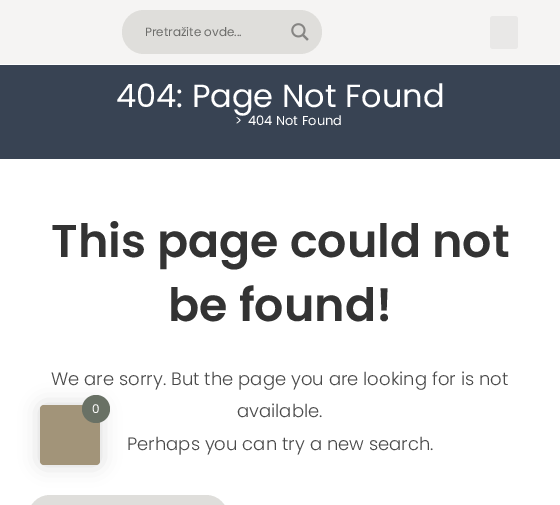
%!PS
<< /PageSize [560 505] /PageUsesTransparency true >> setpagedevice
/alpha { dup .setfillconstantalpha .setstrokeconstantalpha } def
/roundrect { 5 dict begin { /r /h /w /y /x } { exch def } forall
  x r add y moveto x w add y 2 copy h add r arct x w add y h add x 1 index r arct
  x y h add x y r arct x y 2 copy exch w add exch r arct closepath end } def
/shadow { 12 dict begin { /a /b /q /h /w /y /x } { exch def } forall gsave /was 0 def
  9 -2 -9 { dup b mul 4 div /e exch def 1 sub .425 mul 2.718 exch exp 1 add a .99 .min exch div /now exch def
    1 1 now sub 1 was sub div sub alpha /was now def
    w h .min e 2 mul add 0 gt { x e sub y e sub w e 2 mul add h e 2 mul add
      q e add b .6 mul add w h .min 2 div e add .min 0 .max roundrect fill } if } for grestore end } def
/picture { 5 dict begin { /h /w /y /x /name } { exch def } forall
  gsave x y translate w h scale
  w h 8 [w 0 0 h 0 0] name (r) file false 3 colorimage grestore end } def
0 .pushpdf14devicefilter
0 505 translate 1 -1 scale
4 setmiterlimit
1 setgray
0 0 560 505 rectfill
0.961 0.957 0.953 setrgbcolor
newpath 0 0 moveto 560 0 lineto 560 61 lineto 560 62.5 558.5 64 557 64 curveto 0 64 lineto closepath fill
0.875 0.871 0.859 setrgbcolor
122 10 200 44 22 roundrect fill
/Poppins-Regular [12 0 0 -12 0 0] selectfont
0.427 0.427 0.42 setrgbcolor
145 36 moveto (Pretražite ovde...) show
(img1.rgb) 291 23 18 18 picture
0.914 0.91 0.906 setrgbcolor
490 16 28 33 3 roundrect fill
0.22 0.263 0.325 setrgbcolor
0 65 560 94 rectfill
/Poppins-Regular [32 0 0 -32 0 0] selectfont
1 setgray
116 107 moveto (404: Page Not Found) show
/Poppins-Regular [13 0 0 -13 0 0] selectfont
235 125 moveto (>) show
248 125 moveto (404 Not Found) show
/Poppins-SemiBold [46 0 0 -46 0 0] selectfont
0.2 setgray
51 257 moveto (This page could not) show
168 321 moveto (be found!) show
/Poppins-Light [18 0 0 -18 0 0] selectfont
0.29 setgray
51 385 moveto (We are sorry. But the page you are looking for is not) show
237 417 moveto (available.) show
127 450 moveto (Perhaps you can try a new search.) show
0.875 0.871 0.859 setrgbcolor
28 495 200 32 22 roundrect fill
0 setgray
40 405 60 60 4 10 0.15 shadow
0.635 0.58 0.475 setrgbcolor
40 405 60 60 4 roundrect fill
0.412 0.443 0.396 setrgbcolor
newpath 96 409 14 0 360 arc closepath fill
/Poppins-Regular [12 0 0 -12 0 0] selectfont
1 setgray
92 413 moveto (0) show
.poppdf14devicefilter showpage
